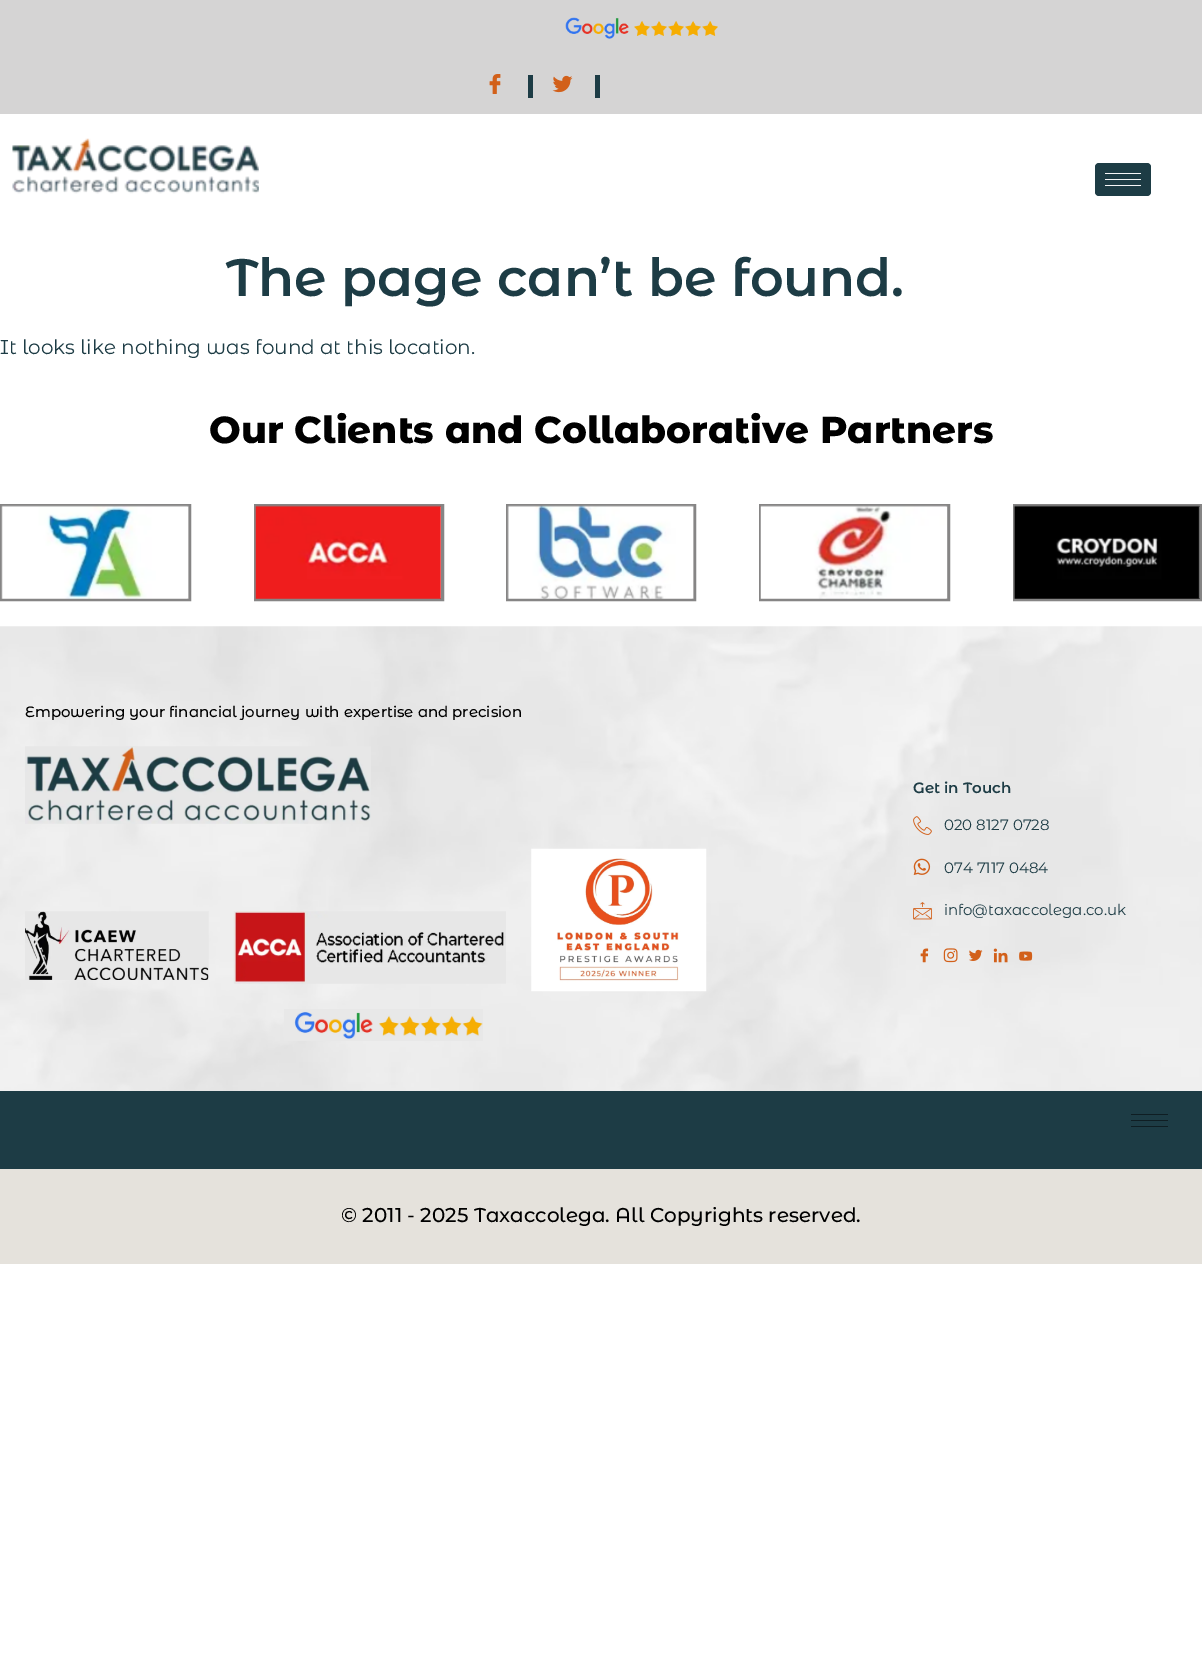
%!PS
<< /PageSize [1202 1661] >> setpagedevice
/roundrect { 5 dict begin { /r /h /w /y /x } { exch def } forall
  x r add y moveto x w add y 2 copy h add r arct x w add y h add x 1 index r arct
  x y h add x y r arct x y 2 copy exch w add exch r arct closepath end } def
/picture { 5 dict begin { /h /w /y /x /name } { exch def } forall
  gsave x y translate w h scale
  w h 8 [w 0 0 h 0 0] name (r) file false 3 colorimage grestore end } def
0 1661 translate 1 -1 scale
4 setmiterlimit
1 setgray
0 0 1202 1661 rectfill
0.835 0.831 0.831 setrgbcolor
0 0 1202 114 rectfill
(img1.rgb) 565 17 153 22 picture
(img2.rgb) 489 74 12 20 picture
0.114 0.235 0.271 setrgbcolor
528 75 5 23 rectfill
(img3.rgb) 552 75 21 18 picture
595 75 5 23 rectfill
(img4.rgb) 12 138 247 56 picture
1095 163 56 33 4 roundrect fill
0.965 0.969 0.973 setrgbcolor
1105 173 36 1 rectfill
1105 179 36 1 rectfill
1105 185 36 1 rectfill
/MontserratAlternates-SemiBold [52.5 0 0 -52.5 0 0] selectfont
0.114 0.235 0.271 setrgbcolor
226 296 moveto (The page can’t be found.) show
/MontserratAlternates-Regular [20 0 0 -20 0 0] selectfont
0 354 moveto (It looks like nothing was found at this location.) show
/MontserratAlternates-ExtraBold [37.5 0 0 -37.5 0 0] selectfont
0 setgray
209 443 moveto (Our Clients and Collaborative Partners) show
0.525 0.522 0.522 setrgbcolor
3 setlinewidth
1.5 505.5 188 94 rectstroke
(img5.rgb) 1 505 188 94 picture
255.5 505.5 187 94 rectstroke
(img6.rgb) 255 505 186 94 picture
507.5 505.5 187 94 rectstroke
(img7.rgb) 507 505 187 94 picture
760.5 505.5 188 94 rectstroke
(img8.rgb) 760 505 188 94 picture
1014.5 505.5 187 94 rectstroke
(img9.rgb) 1013 505 187 94 picture
(img10.rgb) 0 626 1202 465 picture
/MontserratAlternates-Medium [15 0 0 -15 0 0] selectfont
0 setgray
25 717 moveto (Empowering your financial journey with expertise and precision) show
(img11.rgb) 25 746 346 78 picture
(img12.rgb) 25 911 184 69 picture
(img13.rgb) 233 911 273 73 picture
(img14.rgb) 531 848 176 144 picture
/MontserratAlternates-SemiBold [15 0 0 -15 0 0] selectfont
0.114 0.235 0.271 setrgbcolor
913 793 moveto (Get in Touch) show
(img15.rgb) 913 816 19 19 picture
/MontserratAlternates-Regular [15 0 0 -15 0 0] selectfont
944 830 moveto (020 8127 0728) show
(img16.rgb) 913 858 18 17 picture
944 873 moveto (074 7117 0484) show
(img17.rgb) 913 902 19 18 picture
944 915 moveto (info@taxaccolega.co.uk) show
(img18.rgb) 920 948 9 15 picture
(img19.rgb) 943 948 15 15 picture
(img20.rgb) 969 949 14 12 picture
(img21.rgb) 993 948 15 15 picture
(img22.rgb) 1019 951 14 10 picture
(img23.rgb) 284 1009 199 32 picture
0 1091 1202 78 rectfill
0.059 0.118 0.137 setrgbcolor
1131 1114 37 1 rectfill
1131 1120 37 1 rectfill
1131 1126 37 1 rectfill
0.898 0.886 0.863 setrgbcolor
0 1169 1202 95 rectfill
/MontserratAlternates-Medium [20 0 0 -20 0 0] selectfont
0 setgray
341 1222 moveto (© 2011 - 2025 Taxaccolega. All Copyrights reserved.) show
showpage
